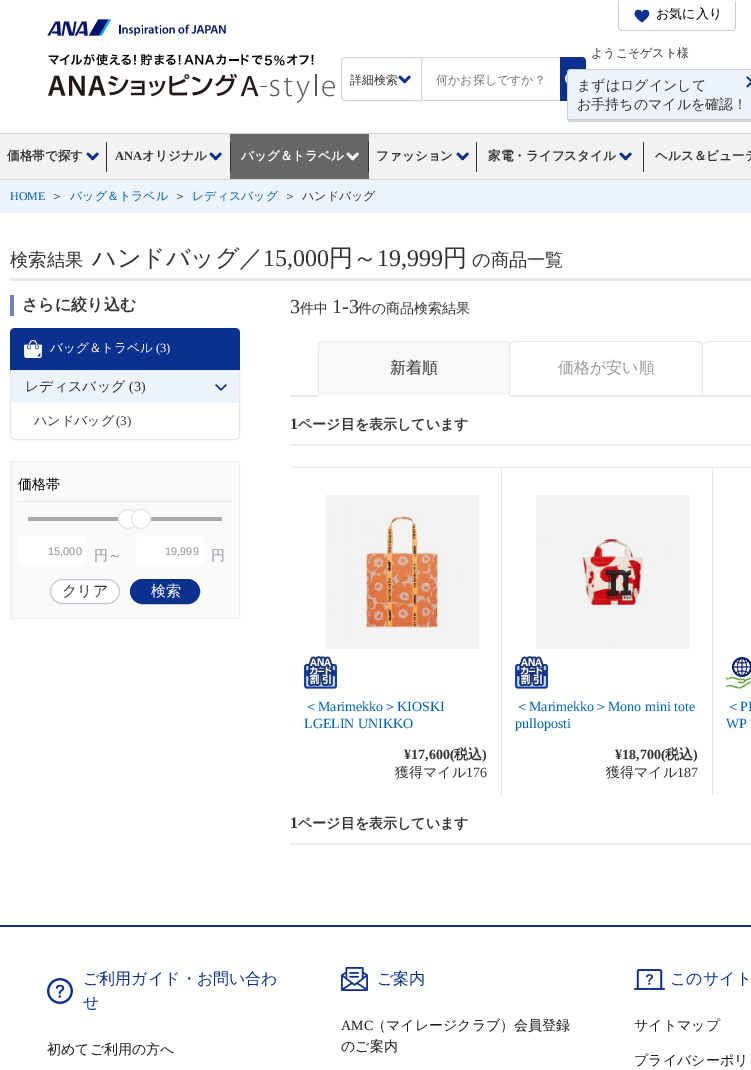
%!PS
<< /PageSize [751 1070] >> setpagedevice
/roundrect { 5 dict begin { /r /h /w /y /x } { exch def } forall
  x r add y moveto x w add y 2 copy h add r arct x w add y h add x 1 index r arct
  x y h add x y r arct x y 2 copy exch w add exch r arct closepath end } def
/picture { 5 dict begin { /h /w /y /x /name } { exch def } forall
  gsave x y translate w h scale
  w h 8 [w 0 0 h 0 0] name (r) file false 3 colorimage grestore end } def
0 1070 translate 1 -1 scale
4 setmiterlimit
1 setgray
0 0 751 1070 rectfill
0.8 setgray
newpath 618 1 moveto 736 1 lineto 736 27 lineto 736 29 734 31 732 31 curveto 622 31 lineto 620 31 618 29 618 27 curveto closepath 619 1 moveto 735 1 lineto 735 27 lineto 735 29 734 30 732 30 curveto 622 30 lineto 620 30 619 29 619 27 curveto closepath eofill
(img1.rgb) 634 9 16 14 picture
/WenQuanYiZenHei-Medium [13 0 0 -13 0 0] selectfont
0 setgray
656 18 moveto (お気に入り) show
(img2.rgb) 47 19 179 17 picture
(img3.rgb) 48 54 287 49 picture
/WenQuanYiZenHei-Medium [12 0 0 -12 0 0] selectfont
0.2 setgray
591 57 moveto (ようこそゲスト様) show
0.839 setgray
newpath 345 57.5 moveto 421.5 57.5 lineto 421.5 100.5 lineto 345 100.5 lineto 343 100.5 341.5 99 341.5 97 curveto 341.5 61 lineto 341.5 59 343 57.5 345 57.5 curveto closepath stroke
0.2 setgray
350 84 moveto (詳細検索) show
(img4.rgb) 398 75 13 9 picture
0.839 setgray
422 57 138 1 rectfill
422 100 138 1 rectfill
0.459 setgray
436 84 moveto (何かお探しですか？) show
0.043 0.192 0.561 setrgbcolor
newpath 560 57 moveto 582 57 lineto 584 57 586 59 586 61 curveto 586 97 lineto 586 99 584 101 582 101 curveto 560 101 lineto closepath fill
(img5.rgb) 565 73 2 11 picture
(img6.rgb) 567 69 184 53 picture
/WenQuanYiZenHei-Medium [14 0 0 -14 0 0] selectfont
0.2 setgray
577 90 moveto (まずはログインして) show
577 109 moveto (お手持ちのマイルを確認！) show
(img7.rgb) 746 76 5 12 picture
0.949 setgray
0 134 751 45 rectfill
0.839 setgray
0 133 751 1 rectfill
0 179 751 1 rectfill
/WenQuanYiZenHei-Bold [12.6 0 0 -12.6 0 0] selectfont
0.2 setgray
7 160 moveto (価格帯で探す) show
(img8.rgb) 86 152 13 9 picture
106 142 1 30 rectfill
/LiberationSerif-Bold [12.6 0 0 -12.6 0 0] selectfont
115 160 moveto (ANA) show
/WenQuanYiZenHei-Bold [12.6 0 0 -12.6 0 0] selectfont
142 160 moveto (オリジナル) show
(img8.rgb) 209 152 13 9 picture
0.404 setgray
230 134 139 45 rectfill
0.2 setgray
230 142 1 30 rectfill
1 setgray
241 160 moveto (バッグ＆トラベル) show
(img9.rgb) 346 152 13 9 picture
0.2 setgray
368 142 1 30 rectfill
376 160 moveto (ファッション) show
(img8.rgb) 456 152 13 9 picture
476 142 1 30 rectfill
488 160 moveto (家電・ライフスタイル) show
(img8.rgb) 619 152 13 9 picture
643 142 1 30 rectfill
655 160 moveto (ヘルス＆ビューテ) show
0.929 0.953 0.98 setrgbcolor
0 180 751 33 rectfill
/LiberationSerif-Regular [12 0 0 -12 0 0] selectfont
0 0.38 0.722 setrgbcolor
10 200 moveto (HOME) show
/WenQuanYiZenHei-Medium [12 0 0 -12 0 0] selectfont
0.2 setgray
51 200 moveto (＞) show
0 0.38 0.722 setrgbcolor
70 200 moveto (バッグ＆トラベル) show
0.2 setgray
174 200 moveto (＞) show
0 0.38 0.722 setrgbcolor
192 200 moveto (レディスバッグ) show
0.2 setgray
284 200 moveto (＞) show
302 200 moveto (ハンドバッグ) show
0.91 0.914 0.922 setrgbcolor
10 278 741 3 rectfill
/WenQuanYiZenHei-Medium [18.25 0 0 -18.25 0 0] selectfont
0.2 setgray
10 266 moveto (検索結果) show
/WenQuanYiZenHei-Medium [24 0 0 -24 0 0] selectfont
92 266 moveto (ハンドバッグ／) show
/LiberationSerif-Regular [24 0 0 -24 0 0] selectfont
263 266 moveto (15,000) show
/WenQuanYiZenHei-Medium [24 0 0 -24 0 0] selectfont
329 266 moveto (円～) show
/LiberationSerif-Regular [24 0 0 -24 0 0] selectfont
377 266 moveto (19,999) show
/WenQuanYiZenHei-Medium [24 0 0 -24 0 0] selectfont
443 266 moveto (円) show
/WenQuanYiZenHei-Medium [18.25 0 0 -18.25 0 0] selectfont
472 266 moveto (の商品一覧) show
0.427 0.514 0.737 setrgbcolor
10 295 4 21 rectfill
/WenQuanYiZenHei-Bold [16 0 0 -16 0 0] selectfont
0.2 setgray
22 310 moveto (さらに絞り込む) show
0.043 0.192 0.561 setrgbcolor
newpath 15 328 moveto 235 328 lineto 238 328 240 330 240 333 curveto 240 370 lineto 10 370 lineto 10 333 lineto 10 330 12 328 15 328 curveto closepath fill
(img10.rgb) 24 340 18 18 picture
/WenQuanYiZenHei-Medium [12.6 0 0 -12.6 0 0] selectfont
1 setgray
50 352 moveto (バッグ＆トラベル) show
/LiberationSerif-Regular [12.6 0 0 -12.6 0 0] selectfont
156 352 moveto (\(3\)) show
0.902 setgray
newpath 10.5 370.5 moveto 239.5 370.5 lineto 239.5 435 lineto 239.5 437.5 237.5 439.5 235 439.5 curveto 15 439.5 lineto 12.5 439.5 10.5 437.5 10.5 435 curveto closepath stroke
0.929 0.953 0.98 setrgbcolor
11 371 228 32 rectfill
/WenQuanYiZenHei-Medium [14 0 0 -14 0 0] selectfont
0.2 setgray
25 391 moveto (レディスバッグ) show
/LiberationSerif-Regular [14 0 0 -14 0 0] selectfont
129 391 moveto (\(3\)) show
(img11.rgb) 215 384 12 7 picture
/WenQuanYiZenHei-Medium [13 0 0 -13 0 0] selectfont
34 425 moveto (ハンドバッグ) show
/LiberationSerif-Regular [13 0 0 -13 0 0] selectfont
116 425 moveto (\(3\)) show
0.98 setgray
newpath 10.5 461.5 moveto 239.5 461.5 lineto 239.5 618.5 lineto 10.5 618.5 lineto closepath gsave fill grestore
0.941 setgray
stroke
/WenQuanYiZenHei-Medium [14 0 0 -14 0 0] selectfont
0 setgray
18 489 moveto (価格帯) show
0.902 setgray
18 501 214 1 rectfill
0.671 0.663 0.663 setrgbcolor
28 517 194 4 rectfill
1 setgray
newpath 128 519 9.5 0 360 arc closepath gsave fill grestore
0.902 setgray
stroke
1 setgray
newpath 141 519 9.5 0 360 arc closepath gsave fill grestore
0.902 setgray
stroke
1 setgray
18 536 69 29 5 roundrect fill
/LiberationSans-Regular [11 0 0 -11 0 0] selectfont
0.553 0.569 0.612 setrgbcolor
48 555 moveto (15,000) show
/WenQuanYiZenHei-Medium [14 0 0 -14 0 0] selectfont
94 560 moveto (円～) show
1 setgray
136 536 68 29 5 roundrect fill
/LiberationSans-Regular [11 0 0 -11 0 0] selectfont
0.553 0.569 0.612 setrgbcolor
165 555 moveto (19,999) show
/WenQuanYiZenHei-Medium [14 0 0 -14 0 0] selectfont
211 560 moveto (円) show
1 setgray
50.5 579.5 69 24 12 roundrect gsave fill grestore
0.745 0.784 0.875 setrgbcolor
stroke
/WenQuanYiZenHei-Medium [15 0 0 -15 0 0] selectfont
0.2 setgray
62 596 moveto (クリア) show
0.043 0.192 0.561 setrgbcolor
130.5 579.5 69 24 12 roundrect gsave fill grestore
stroke
1 setgray
151 596 moveto (検索) show
/LiberationSerif-Regular [20 0 0 -20 0 0] selectfont
0.2 setgray
290 313 moveto (3) show
/WenQuanYiZenHei-Medium [14 0 0 -14 0 0] selectfont
300 313 moveto (件中) show
/LiberationSerif-Regular [20 0 0 -20 0 0] selectfont
332 313 moveto (1-3) show
/WenQuanYiZenHei-Medium [14 0 0 -14 0 0] selectfont
358 313 moveto (件の商品検索結果) show
0.969 0.973 0.98 setrgbcolor
newpath 323 342 moveto 505 342 lineto 507 342 509 344 509 346 curveto 509 395 lineto 319 395 lineto 319 346 lineto 319 344 321 342 323 342 curveto closepath fill
0.91 0.914 0.922 setrgbcolor
newpath 323 341 moveto 322 341 320 342 319 342 curveto 320 343 lineto 321 342 322 342 323 342 curveto 505 342 lineto 506 342 507 342 508 343 curveto 509 342 lineto 508 342 506 341 505 341 curveto closepath fill
290 395 220 2 rectfill
newpath 510 397 moveto 510 346 lineto 510 344 510 343 509 342 curveto 508 343 lineto 508 344 509 345 509 346 curveto 509 395 lineto closepath fill
1 setgray
newpath 510 397 moveto 509 395 lineto 319 395 lineto 318 397 lineto closepath fill
0.91 0.914 0.922 setrgbcolor
newpath 318 397 moveto 319 395 lineto 319 346 lineto 319 345 320 344 320 343 curveto 319 342 lineto 318 343 318 344 318 346 curveto closepath fill
/WenQuanYiZenHei-Medium [16 0 0 -16 0 0] selectfont
0.2 setgray
390 373 moveto (新着順) show
0.91 0.914 0.922 setrgbcolor
newpath 515 341 moveto 698 341 lineto 701 341 703 343 703 346 curveto 703 397 lineto 510 397 lineto 510 346 lineto 510 343 512 341 515 341 curveto closepath 515 342 moveto 698 342 lineto 700 342 702 344 702 346 curveto 702 395 lineto 510 395 lineto 510 346 lineto 510 344 512 342 515 342 curveto closepath eofill
0.6 setgray
558 373 moveto (価格が安い順) show
0.91 0.914 0.922 setrgbcolor
newpath 708 341 moveto 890 341 lineto 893 341 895 343 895 346 curveto 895 397 lineto 703 397 lineto 703 346 lineto 703 343 705 341 708 341 curveto closepath 708 342 moveto 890 342 lineto 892 342 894 344 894 346 curveto 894 395 lineto 703 395 lineto 703 346 lineto 703 344 705 342 708 342 curveto closepath eofill
0.929 setgray
290 444 461 2 rectfill
/LiberationSerif-Bold [16 0 0 -16 0 0] selectfont
0.2 setgray
290 429 moveto (1) show
/WenQuanYiZenHei-Bold [14 0 0 -14 0 0] selectfont
298 429 moveto (ページ目を表示しています) show
0.902 setgray
501 467 1 329 rectfill
290 467 461 1 rectfill
712 467 1 329 rectfill
(img12.rgb) 325 495 154 154 picture
(img13.rgb) 304 656 33 33 picture
/WenQuanYiZenHei-Medium [14 0 0 -14 0 0] selectfont
0 0.38 0.722 setrgbcolor
304 711 moveto (＜) show
/LiberationSerif-Regular [14 0 0 -14 0 0] selectfont
318 711 moveto (Marimekko) show
/WenQuanYiZenHei-Medium [14 0 0 -14 0 0] selectfont
383 711 moveto (＞) show
/LiberationSerif-Regular [14 0 0 -14 0 0] selectfont
397 711 moveto (KIOSKI) show
304 728 moveto (LGELIN UNIKKO) show
/LiberationSerif-Bold [14 0 0 -14 0 0] selectfont
0.2 setgray
404 759 moveto (¥17,600\() show
/WenQuanYiZenHei-Bold [14 0 0 -14 0 0] selectfont
454 759 moveto (税込) show
/LiberationSerif-Bold [14 0 0 -14 0 0] selectfont
482 759 moveto (\)) show
/WenQuanYiZenHei-Medium [14 0 0 -14 0 0] selectfont
395 777 moveto (獲得マイル) show
/LiberationSerif-Regular [14 0 0 -14 0 0] selectfont
466 777 moveto (176) show
(img14.rgb) 536 495 154 154 picture
(img13.rgb) 515 656 33 33 picture
/WenQuanYiZenHei-Medium [14 0 0 -14 0 0] selectfont
0 0.38 0.722 setrgbcolor
515 711 moveto (＜) show
/LiberationSerif-Regular [14 0 0 -14 0 0] selectfont
529 711 moveto (Marimekko) show
/WenQuanYiZenHei-Medium [14 0 0 -14 0 0] selectfont
594 711 moveto (＞) show
/LiberationSerif-Regular [14 0 0 -14 0 0] selectfont
608 711 moveto (Mono mini tote) show
515 728 moveto (pulloposti) show
/LiberationSerif-Bold [14 0 0 -14 0 0] selectfont
0.2 setgray
615 759 moveto (¥18,700\() show
/WenQuanYiZenHei-Bold [14 0 0 -14 0 0] selectfont
665 759 moveto (税込) show
/LiberationSerif-Bold [14 0 0 -14 0 0] selectfont
693 759 moveto (\)) show
/WenQuanYiZenHei-Medium [14 0 0 -14 0 0] selectfont
606 777 moveto (獲得マイル) show
/LiberationSerif-Regular [14 0 0 -14 0 0] selectfont
677 777 moveto (187) show
(img15.rgb) 726 657 25 32 picture
/WenQuanYiZenHei-Medium [14 0 0 -14 0 0] selectfont
0 0.38 0.722 setrgbcolor
726 711 moveto (＜) show
/LiberationSerif-Regular [14 0 0 -14 0 0] selectfont
740 711 moveto (PI) show
726 728 moveto (WP) show
0.929 setgray
290 843 461 2 rectfill
/LiberationSerif-Bold [16 0 0 -16 0 0] selectfont
0.2 setgray
290 828 moveto (1) show
/WenQuanYiZenHei-Bold [14 0 0 -14 0 0] selectfont
298 828 moveto (ページ目を表示しています) show
0.043 0.192 0.561 setrgbcolor
0 925 751 2 rectfill
(img16.rgb) 47 978 26 26 picture
/WenQuanYiZenHei-Medium [16 0 0 -16 0 0] selectfont
83 984 moveto (ご利用ガイド・お問い合わ) show
83 1008 moveto (せ) show
/WenQuanYiZenHei-Medium [14 0 0 -14 0 0] selectfont
0.102 setgray
47 1054 moveto (初めてご利用の方へ) show
(img17.rgb) 341 967 27 24 picture
/WenQuanYiZenHei-Medium [16 0 0 -16 0 0] selectfont
0.043 0.192 0.561 setrgbcolor
377 984 moveto (ご案内) show
/LiberationSerif-Regular [14 0 0 -14 0 0] selectfont
0.102 setgray
341 1030 moveto (AMC) show
/WenQuanYiZenHei-Medium [14 0 0 -14 0 0] selectfont
372 1030 moveto (（マイレージクラブ）会員登録) show
341 1051 moveto (のご案内) show
(img18.rgb) 634 969 31 21 picture
/WenQuanYiZenHei-Medium [16 0 0 -16 0 0] selectfont
0.043 0.192 0.561 setrgbcolor
670 984 moveto (このサイト) show
/WenQuanYiZenHei-Medium [14 0 0 -14 0 0] selectfont
0.102 setgray
634 1030 moveto (サイトマップ) show
634 1065 moveto (プライバシーポリ) show
showpage
